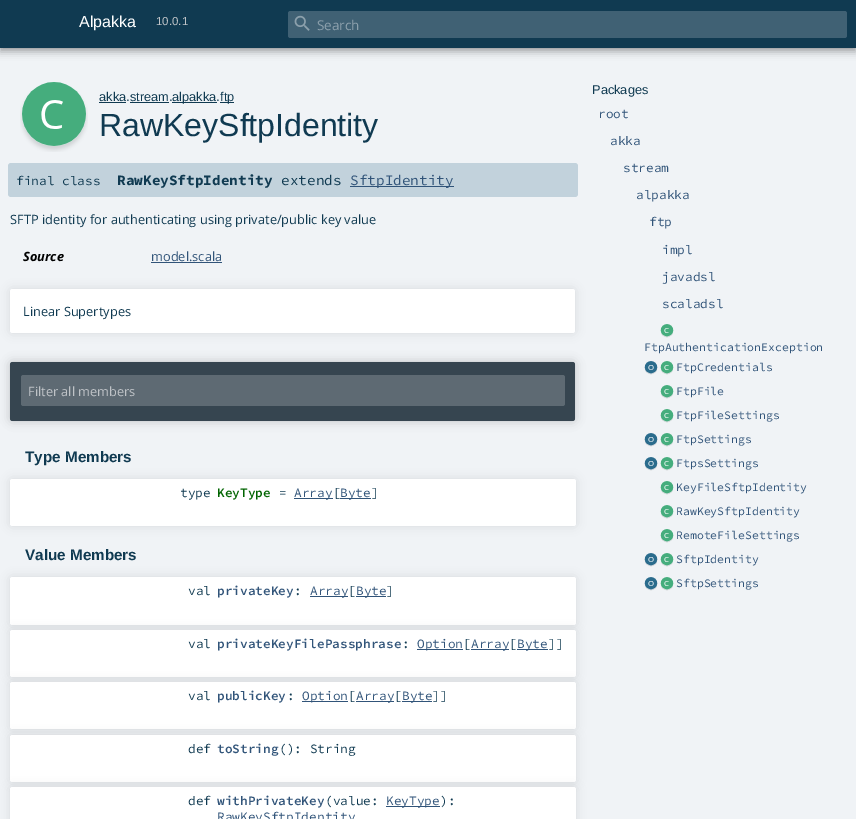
%!PS
<< /PageSize [856 819] /PageUsesTransparency true >> setpagedevice
/alpha { dup .setfillconstantalpha .setstrokeconstantalpha } def
/roundrect { 5 dict begin { /r /h /w /y /x } { exch def } forall
  x r add y moveto x w add y 2 copy h add r arct x w add y h add x 1 index r arct
  x y h add x y r arct x y 2 copy exch w add exch r arct closepath end } def
/shadow { 12 dict begin { /a /b /q /h /w /y /x } { exch def } forall gsave /was 0 def
  9 -2 -9 { dup b mul 4 div /e exch def 1 sub .425 mul 2.718 exch exp 1 add a .99 .min exch div /now exch def
    1 1 now sub 1 was sub div sub alpha /was now def
    w h .min e 2 mul add 0 gt { x e sub y e sub w e 2 mul add h e 2 mul add
      q e add b .6 mul add w h .min 2 div e add .min 0 .max roundrect fill } if } for grestore end } def
/picture { 5 dict begin { /h /w /y /x /name } { exch def } forall
  gsave x y translate w h scale
  w h 8 [w 0 0 h 0 0] name (r) file false 3 colorimage grestore end } def
0 .pushpdf14devicefilter
0 819 translate 1 -1 scale
4 setmiterlimit
0.941 0.953 0.965 setrgbcolor
0 0 856 819 rectfill
0 setgray
0 4 856 48 0 4 0.28 shadow
0 0 856 48 0 2 0.18 shadow
0.063 0.227 0.318 setrgbcolor
0 0 856 48 rectfill
/LiberationSans-Regular [16 0 0 -16 0 0] selectfont
1 setgray
79 27 moveto (Alpakka) show
/LiberationSans-Regular [11.5 0 0 -11.5 0 0] selectfont
0.749 0.765 0.78 setrgbcolor
156 25 moveto (10.0.1) show
0.251 0.38 0.455 setrgbcolor
288 11 559 27 2.5 roundrect fill
(img1.rgb) 294 15 16 16 picture
/OpenSans-Regular [13.5 0 0 -13.5 0 0] selectfont
0.549 0.627 0.675 setrgbcolor
317 30 moveto (Search) show
(img2.rgb) 20 82 68 70 picture
/LiberationSans-Regular [12.8 0 0 -12.8 0 0] selectfont
0.063 0.227 0.318 setrgbcolor
99 101 moveto (akka.stream.) show
99 102 27 1 rectfill
172 102 45 1 rectfill
172 101 moveto (alpakka.) show
220 102 14 1 rectfill
220 101 moveto (ftp) show
130 102 39 1 rectfill
/LiberationSans-Regular [32 0 0 -32 0 0] selectfont
99 136 moveto (RawKeySftpIdentity) show
0.761 0.824 0.863 setrgbcolor
8 163 570 34 3 roundrect fill
/SourceCodePro-Regular [12.8 0 0 -12.8 0 0] selectfont
0.063 0.227 0.318 setrgbcolor
16 185 moveto (final class) show
/SourceCodePro-Bold [14.4 0 0 -14.4 0 0] selectfont
117 185 moveto (RawKeySftpIdentity) show
/SourceCodePro-Regular [14.4 0 0 -14.4 0 0] selectfont
281 185 moveto (extends) show
0.192 0.329 0.475 setrgbcolor
350 186 104 1 rectfill
350 185 moveto (SftpIdentity) show
/OpenSans-Regular [12.8 0 0 -12.8 0 0] selectfont
0.063 0.227 0.318 setrgbcolor
10 224 moveto (SFTP identity for authenticating using private/public key value) show
/OpenSans-BoldItalic [12.8 0 0 -12.8 0 0] selectfont
0 setgray
23 261 moveto (Source) show
/OpenSans-Regular [12.8 0 0 -12.8 0 0] selectfont
0.192 0.329 0.475 setrgbcolor
151 261 moveto (model.scala) show
151 262 71 1 rectfill
0 setgray
10 289 565 44 2.5 5 0.1 shadow
1 setgray
10 289 565 44 2.5 roundrect fill
0.063 0.227 0.318 setrgbcolor
23 316 moveto (Linear Supertypes) show
0 setgray
10 362 565 59 2.5 5 0.2 shadow
0.212 0.271 0.314 setrgbcolor
10 362 565 59 2.5 roundrect fill
0.369 0.416 0.451 setrgbcolor
21 375 544 31 2.5 roundrect fill
0.749 0.765 0.78 setrgbcolor
28 396 moveto (Filter all members) show
/LiberationSans-Bold [15.25 0 0 -15.25 0 0] selectfont
0.063 0.227 0.318 setrgbcolor
25 462 moveto (Type Members) show
0 setgray
10 479 566 47 2.5 5 0.1 shadow
1 setgray
10 479 566 47 2.5 roundrect fill
10 480 1 45 rectfill
/SourceCodePro-Regular [12.8 0 0 -12.8 0 0] selectfont
0.063 0.227 0.318 setrgbcolor
180 497 moveto (type) show
/SourceCodePro-SemiBold [12.8 0 0 -12.8 0 0] selectfont
0 0.392 0 setrgbcolor
217 497 moveto (KeyType) show
/SourceCodePro-Regular [12.8 0 0 -12.8 0 0] selectfont
0.063 0.227 0.318 setrgbcolor
279 497 moveto (=) show
0.192 0.329 0.475 setrgbcolor
294 498 39 1 rectfill
294 497 moveto (Array) show
0.063 0.227 0.318 setrgbcolor
333 497 moveto ([) show
0.192 0.329 0.475 setrgbcolor
340 498 31 1 rectfill
340 497 moveto (Byte) show
0.063 0.227 0.318 setrgbcolor
371 497 moveto (]) show
/LiberationSans-Bold [15.25 0 0 -15.25 0 0] selectfont
25 560 moveto (Value Members) show
0 setgray
10 577 566 48 2.5 5 0.1 shadow
1 setgray
10 577 566 48 2.5 roundrect fill
10 578 1 46 rectfill
/SourceCodePro-Regular [12.8 0 0 -12.8 0 0] selectfont
0.063 0.227 0.318 setrgbcolor
188 595 moveto (val) show
/SourceCodePro-SemiBold [12.8 0 0 -12.8 0 0] selectfont
0.192 0.329 0.475 setrgbcolor
217 595 moveto (privateKey) show
/SourceCodePro-Regular [12.8 0 0 -12.8 0 0] selectfont
0.063 0.227 0.318 setrgbcolor
294 595 moveto (:) show
0.192 0.329 0.475 setrgbcolor
310 596 38 1 rectfill
310 595 moveto (Array) show
0.063 0.227 0.318 setrgbcolor
348 595 moveto ([) show
0.192 0.329 0.475 setrgbcolor
356 596 30 1 rectfill
356 595 moveto (Byte) show
0.063 0.227 0.318 setrgbcolor
386 595 moveto (]) show
0 setgray
10 630 566 47 2.5 5 0.1 shadow
1 setgray
10 630 566 47 2.5 roundrect fill
10 631 1 45 rectfill
0.063 0.227 0.318 setrgbcolor
188 648 moveto (val) show
/SourceCodePro-SemiBold [12.8 0 0 -12.8 0 0] selectfont
0.192 0.329 0.475 setrgbcolor
217 648 moveto (privateKeyFilePassphrase) show
/SourceCodePro-Regular [12.8 0 0 -12.8 0 0] selectfont
0.063 0.227 0.318 setrgbcolor
402 648 moveto (:) show
0.192 0.329 0.475 setrgbcolor
417 649 46 1 rectfill
417 648 moveto (Option) show
0.063 0.227 0.318 setrgbcolor
463 648 moveto ([) show
0.192 0.329 0.475 setrgbcolor
471 649 38 1 rectfill
471 648 moveto (Array) show
0.063 0.227 0.318 setrgbcolor
509 648 moveto ([) show
0.192 0.329 0.475 setrgbcolor
517 649 31 1 rectfill
517 648 moveto (Byte) show
0.063 0.227 0.318 setrgbcolor
548 648 moveto (]]) show
0 setgray
10 682 566 47 2.5 5 0.1 shadow
1 setgray
10 682 566 47 2.5 roundrect fill
10 683 1 45 rectfill
0.063 0.227 0.318 setrgbcolor
188 700 moveto (val) show
/SourceCodePro-SemiBold [12.8 0 0 -12.8 0 0] selectfont
0.192 0.329 0.475 setrgbcolor
217 700 moveto (publicKey) show
/SourceCodePro-Regular [12.8 0 0 -12.8 0 0] selectfont
0.063 0.227 0.318 setrgbcolor
287 700 moveto (:) show
0.192 0.329 0.475 setrgbcolor
302 701 46 1 rectfill
302 700 moveto (Option) show
0.063 0.227 0.318 setrgbcolor
348 700 moveto ([) show
0.192 0.329 0.475 setrgbcolor
356 701 38 1 rectfill
356 700 moveto (Array) show
0.063 0.227 0.318 setrgbcolor
394 700 moveto ([) show
0.192 0.329 0.475 setrgbcolor
402 701 30 1 rectfill
402 700 moveto (Byte) show
0.063 0.227 0.318 setrgbcolor
432 700 moveto (]]) show
0 setgray
10 735 566 47 2.5 5 0.1 shadow
1 setgray
10 735 566 47 2.5 roundrect fill
10 736 1 45 rectfill
0.063 0.227 0.318 setrgbcolor
188 753 moveto (def) show
/SourceCodePro-SemiBold [12.8 0 0 -12.8 0 0] selectfont
0.192 0.329 0.475 setrgbcolor
217 753 moveto (toString) show
/SourceCodePro-Regular [12.8 0 0 -12.8 0 0] selectfont
0.063 0.227 0.318 setrgbcolor
279 753 moveto (\(\): String) show
0 setgray
10 787 566 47 2.5 5 0.1 shadow
1 setgray
10 787 566 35 2.5 roundrect fill
10 788 1 1 rectfill
0.063 0.227 0.318 setrgbcolor
188 805 moveto (def) show
/SourceCodePro-SemiBold [12.8 0 0 -12.8 0 0] selectfont
0.192 0.329 0.475 setrgbcolor
217 805 moveto (withPrivateKey) show
/SourceCodePro-Regular [12.8 0 0 -12.8 0 0] selectfont
0.063 0.227 0.318 setrgbcolor
325 805 moveto (\(value:) show
0.192 0.329 0.475 setrgbcolor
386 806 54 1 rectfill
386 805 moveto (KeyType) show
0.063 0.227 0.318 setrgbcolor
440 805 moveto (\):) show
0.192 0.329 0.475 setrgbcolor
217 821 moveto (RawKeySftpIdentity) show
/LiberationSans-Regular [12.8 0 0 -12.8 0 0] selectfont
0.063 0.227 0.318 setrgbcolor
592 94 moveto (Packages) show
/SourceCodePro-Regular [12.8 0 0 -12.8 0 0] selectfont
0.192 0.329 0.475 setrgbcolor
598 118 moveto (root) show
610 145 moveto (akka) show
623 172 moveto (stream) show
636 199 moveto (alpakka) show
649 226 moveto (ftp) show
662 254 moveto (impl) show
662 281 moveto (javadsl) show
662 308 moveto (scaladsl) show
(img3.rgb) 660 324 14 14 picture
/SourceCodePro-Regular [11.5 0 0 -11.5 0 0] selectfont
644 351 moveto (FtpAuthenticationException) show
(img4.rgb) 644 361 14 14 picture
(img3.rgb) 660 361 14 14 picture
676 371 moveto (FtpCredentials) show
(img3.rgb) 660 385 14 14 picture
676 395 moveto (FtpFile) show
(img3.rgb) 660 409 14 14 picture
676 419 moveto (FtpFileSettings) show
(img4.rgb) 644 433 14 14 picture
(img3.rgb) 660 433 14 14 picture
676 443 moveto (FtpSettings) show
(img4.rgb) 644 457 14 14 picture
(img3.rgb) 660 457 14 14 picture
676 467 moveto (FtpsSettings) show
(img3.rgb) 660 481 14 14 picture
676 491 moveto (KeyFileSftpIdentity) show
(img3.rgb) 660 505 14 14 picture
676 515 moveto (RawKeySftpIdentity) show
(img3.rgb) 660 529 14 14 picture
676 539 moveto (RemoteFileSettings) show
(img4.rgb) 644 553 14 14 picture
(img3.rgb) 660 553 14 14 picture
676 563 moveto (SftpIdentity) show
(img4.rgb) 644 577 14 14 picture
(img3.rgb) 660 577 14 14 picture
676 587 moveto (SftpSettings) show
.poppdf14devicefilter showpage
